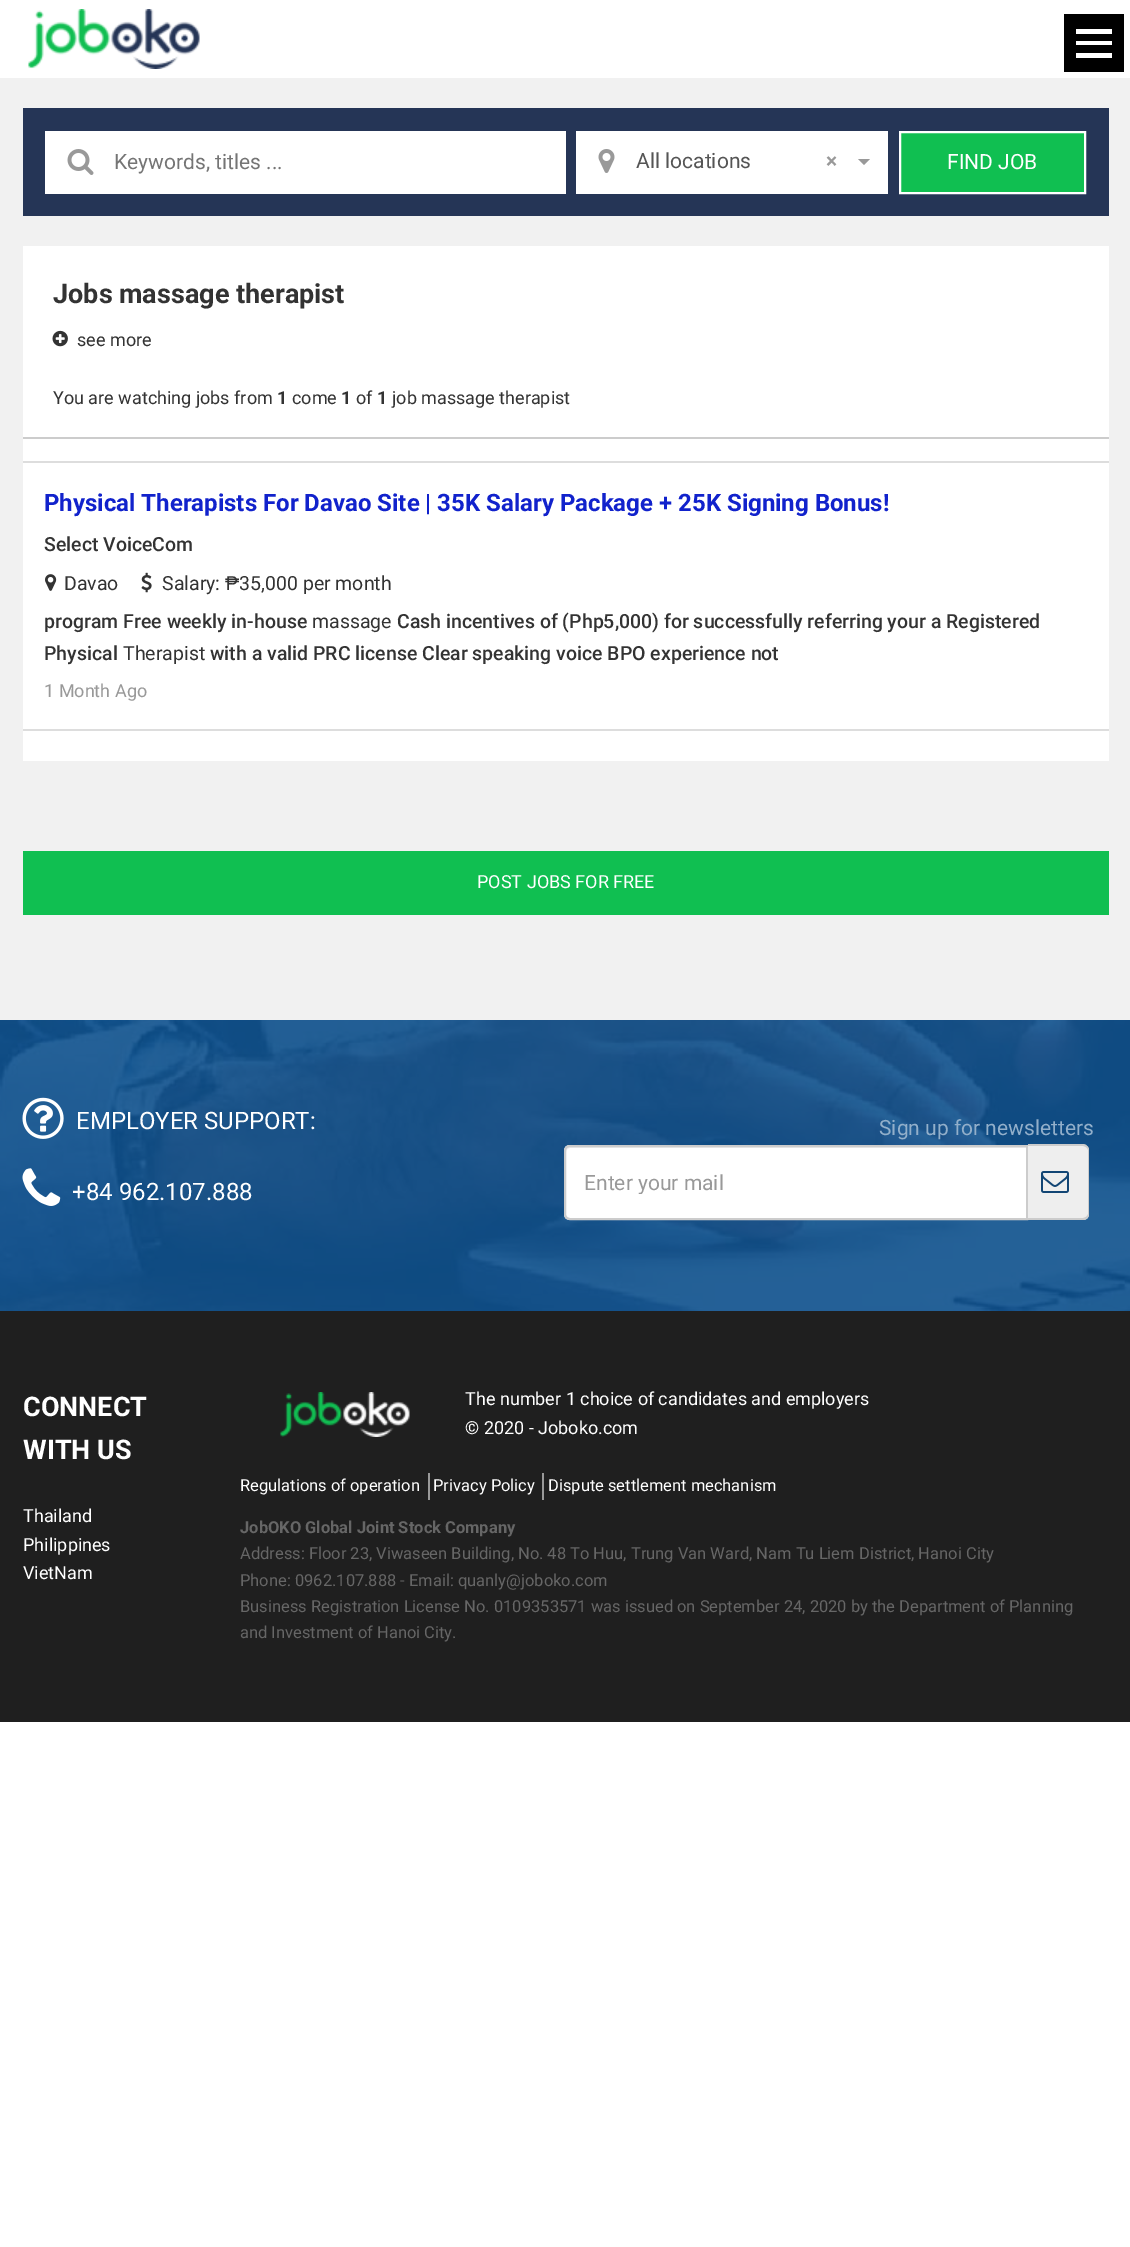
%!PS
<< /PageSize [1130 2247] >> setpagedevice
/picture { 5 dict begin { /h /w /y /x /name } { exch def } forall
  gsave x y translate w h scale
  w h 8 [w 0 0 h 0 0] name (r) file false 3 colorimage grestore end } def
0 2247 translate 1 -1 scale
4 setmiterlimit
1 setgray
0 0 1130 2247 rectfill
(img1.rgb) 28 9 172 60 picture
0 setgray
1076 14 36 27 rectfill
1112 14 12 31 rectfill
1076 45 48 27 rectfill
1064 14 12 58 rectfill
1 setgray
1076 29 36 5 rectfill
1076 53 36 5 rectfill
0.945 setgray
0 78 1130 942 rectfill
0.145 0.208 0.337 setrgbcolor
23 108 1086 108 rectfill
1 setgray
45 131 521 63 rectfill
(img2.rgb) 67 149 27 26 picture
/Roboto-Regular [21 0 0 -21 0 0] selectfont
0.459 setgray
114 169 moveto (Keywords, titles ...) show
1 setgray
576 131 312 63 rectfill
(img3.rgb) 598 149 17 24 picture
0.333 setgray
636 168 moveto (All locations) show
/Roboto-Bold [21 0 0 -21 0 0] selectfont
0.6 setgray
826 168 moveto (×) show
newpath 858 159 moveto 870 159 lineto 864 165 lineto closepath fill
0.063 0.749 0.318 setrgbcolor
newpath 900 132 moveto 1085 132 lineto 1085 193 lineto 900 193 lineto closepath gsave fill grestore
1 setgray
2 setlinewidth
stroke
/Roboto-Regular [21 0 0 -21 0 0] selectfont
947 169 moveto (FIND JOB) show
23 246 1086 515 rectfill
/Roboto-Bold [27 0 0 -27 0 0] selectfont
0.2 setgray
53 303 moveto (Jobs massage therapist) show
(img4.rgb) 52 330 16 17 picture
/Roboto-Regular [18 0 0 -18 0 0] selectfont
77 346 moveto (see more) show
0.8 setgray
23 437 1086 2 rectfill
0.2 setgray
53 404 moveto (You are watching jobs from) show
/Roboto-Bold [18 0 0 -18 0 0] selectfont
277 404 moveto (1) show
/Roboto-Regular [18 0 0 -18 0 0] selectfont
292 404 moveto (come) show
/Roboto-Bold [18 0 0 -18 0 0] selectfont
341 404 moveto (1) show
/Roboto-Regular [18 0 0 -18 0 0] selectfont
356 404 moveto (of) show
/Roboto-Bold [18 0 0 -18 0 0] selectfont
377 404 moveto (1) show
/Roboto-Regular [18 0 0 -18 0 0] selectfont
392 404 moveto (job massage therapist) show
0.867 setgray
23 461 1086 2 rectfill
23 729 1086 2 rectfill
/Roboto-Bold [24 0 0 -24 0 0] selectfont
0.067 0.133 0.8 setrgbcolor
44 511 moveto (Physical Therapists For Davao Site | 35K Salary Package + 25K Signing Bonus!) show
/Roboto-Medium [19.5 0 0 -19.5 0 0] selectfont
0.2 setgray
44 551 moveto (Select VoiceCom) show
(img5.rgb) 45 574 12 17 picture
/Roboto-Regular [19.5 0 0 -19.5 0 0] selectfont
64 590 moveto (Davao) show
(img6.rgb) 141 572 11 21 picture
162 590 moveto (Salary: ₱35,000 per month) show
/Roboto-Medium [19.5 0 0 -19.5 0 0] selectfont
44 628 moveto (program Free weekly in-house) show
/Roboto-Regular [19.5 0 0 -19.5 0 0] selectfont
312 628 moveto (massage) show
/Roboto-Medium [19.5 0 0 -19.5 0 0] selectfont
397 628 moveto (Cash incentives of \(Php5,000\) for successfully referring your a Registered) show
44 660 moveto (Physical) show
/Roboto-Regular [19.5 0 0 -19.5 0 0] selectfont
123 660 moveto (Therapist) show
/Roboto-Medium [19.5 0 0 -19.5 0 0] selectfont
210 660 moveto (with a valid PRC license Clear speaking voice BPO experience not) show
/Roboto-Regular [18 0 0 -18 0 0] selectfont
0.6 setgray
44 697 moveto (1 Month Ago) show
0.063 0.749 0.318 setrgbcolor
23 851 1086 64 rectfill
1 setgray
477 888 moveto (POST JOBS FOR FREE) show
(img7.rgb) 0 1020 1130 291 picture
(img8.rgb) 22 1097 42 42 picture
/Roboto-Regular [24 0 0 -24 0 0] selectfont
76 1129 moveto (EMPLOYER SUPPORT:) show
(img9.rgb) 22 1168 39 38 picture
72 1200 moveto (+84 962.107.888) show
/Roboto-Regular [21 0 0 -21 0 0] selectfont
0.573 0.686 0.792 setrgbcolor
879 1135 moveto (Sign up for newsletters) show
1 setgray
newpath 570 1145 moveto 1028 1145 lineto 1028 1220 lineto 570 1220 lineto 566.5 1220 564 1217.5 564 1214 curveto 564 1151 lineto 564 1147.5 566.5 1145 570 1145 curveto closepath fill
0.925 setgray
newpath 570 1148 moveto 1026 1148 lineto 1026 1146 lineto 571 1146 lineto 568 1146 566 1149 566 1152 curveto 566 1150 568 1148 570 1148 curveto closepath fill
0.8 setgray
newpath 570 1146 moveto 1027 1146 lineto 1027 1219 lineto 570 1219 lineto 567 1219 565 1217 565 1214 curveto 565 1151 lineto 565 1148 567 1146 570 1146 curveto closepath stroke
gsave
584 1170 424 24 rectclip
0.6 setgray
584 1190 moveto (Enter your mail) show
grestore
0.933 setgray
newpath 1028 1145 moveto 1083 1145 lineto 1086.5 1145 1089 1147.5 1089 1151 curveto 1089 1214 lineto 1089 1217.5 1086.5 1220 1083 1220 curveto 1028 1220 lineto closepath fill
0.8 setgray
newpath 1028 1144 moveto 1083 1144 lineto 1086 1144 1089 1147 1089 1150 curveto 1089 1214 lineto 1089 1217 1086 1220 1083 1220 curveto 1028 1220 lineto closepath 1028 1146 moveto 1083 1146 lineto 1085 1146 1088 1148 1088 1150 curveto 1088 1214 lineto 1088 1216 1085 1218 1083 1218 curveto 1028 1218 lineto closepath eofill
(img10.rgb) 1041 1171 28 22 picture
0.122 setgray
0 1311 1130 411 rectfill
/Roboto-Bold [27 0 0 -27 0 0] selectfont
1 setgray
23 1416 moveto (CONNECT) show
23 1459 moveto (WITH US) show
/Roboto-Regular [18 0 0 -18 0 0] selectfont
23 1522 moveto (Thailand) show
23 1551 moveto (Philippines) show
23 1579 moveto (VietNam) show
(img11.rgb) 280 1392 130 45 picture
465 1405 moveto (The number 1 choice of candidates and employers) show
465 1434 moveto (© 2020 - Joboko.com) show
0.6 setgray
428 1473 2 27 rectfill
/Roboto-Regular [16.5 0 0 -16.5 0 0] selectfont
1 setgray
240 1491 moveto (Regulations of operation) show
0.6 setgray
542 1473 2 27 rectfill
1 setgray
433 1491 moveto (Privacy Policy) show
548 1491 moveto (Dispute settlement mechanism) show
/Roboto-Bold [16.5 0 0 -16.5 0 0] selectfont
0.4 setgray
240 1533 moveto (JobOKO Global Joint Stock Company) show
/Roboto-Regular [16.5 0 0 -16.5 0 0] selectfont
240 1559 moveto (Address: Floor 23, Viwaseen Building, No. 48 To Huu, Trung Van Ward, Nam Tu Liem District, Hanoi City) show
240 1586 moveto (Phone: 0962.107.888 - Email: quanly@joboko.com) show
240 1612 moveto (Business Registration License No. 0109353571 was issued on September 24, 2020 by the Department of Planning) show
240 1638 moveto (and Investment of Hanoi City.) show
showpage
